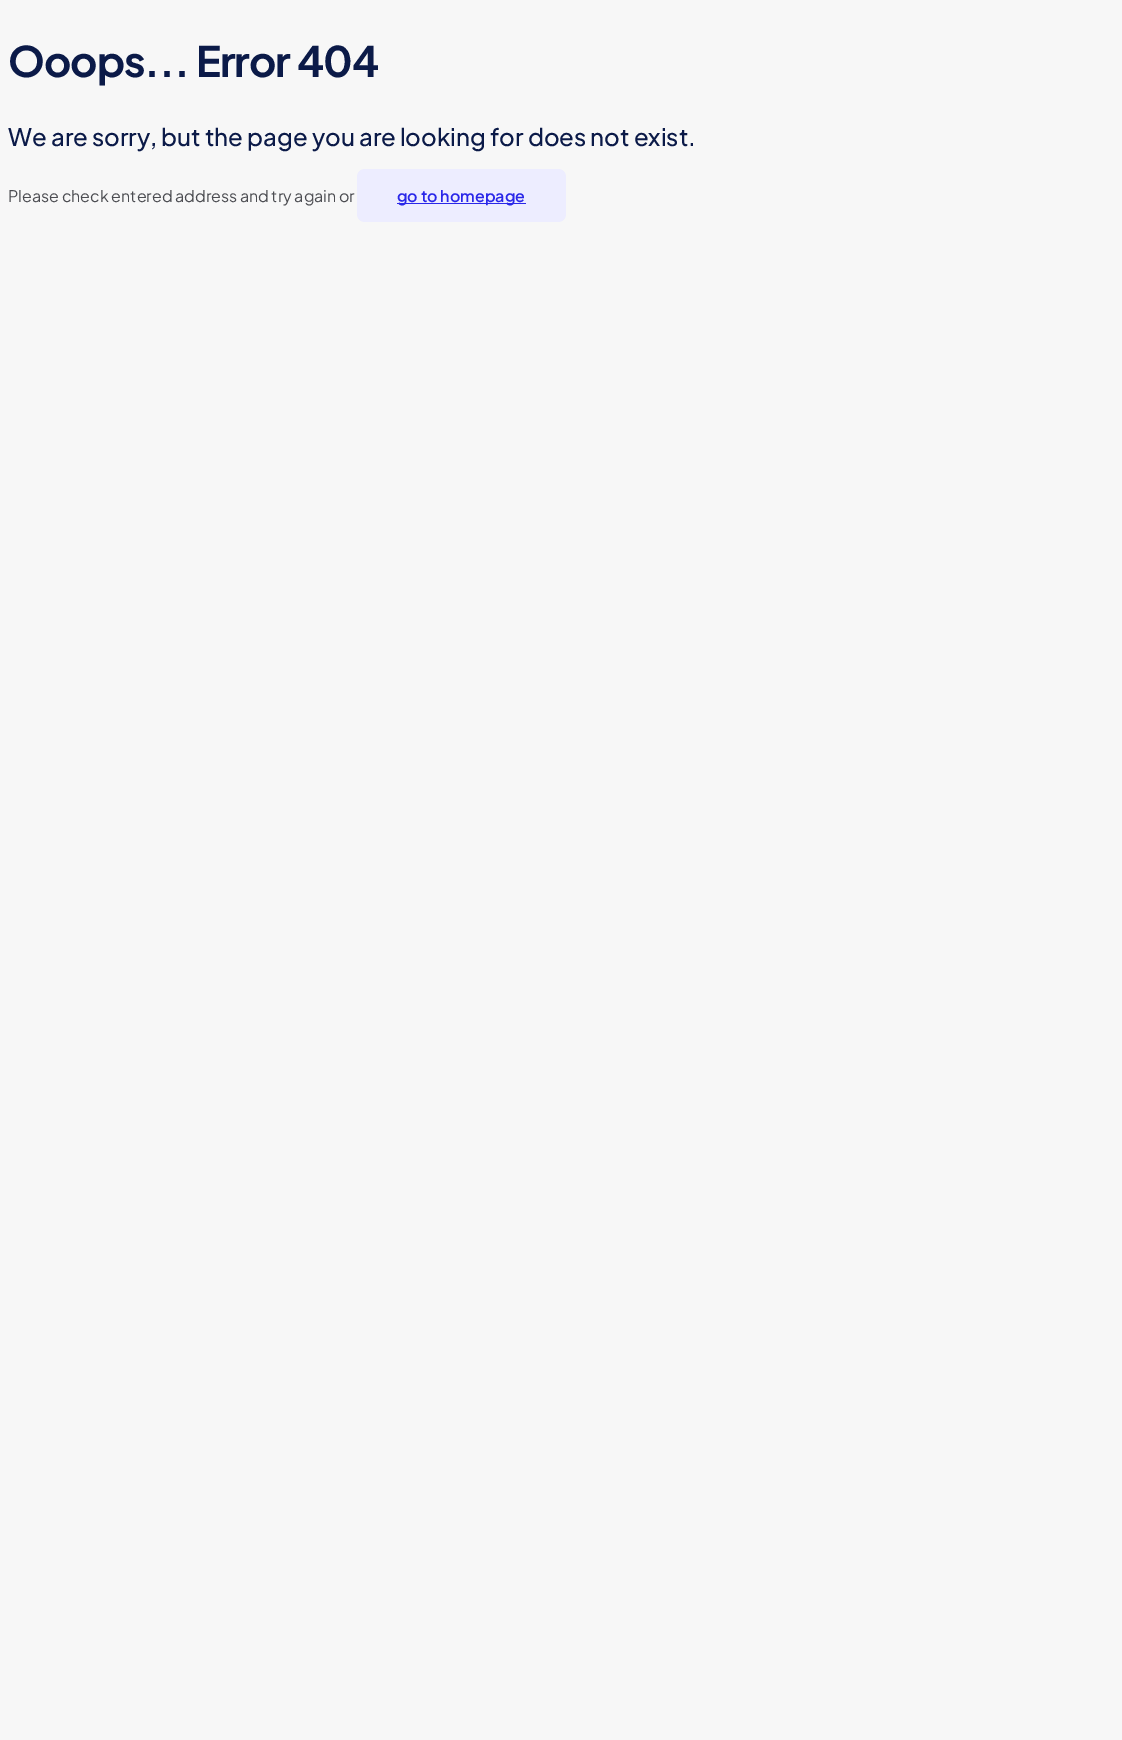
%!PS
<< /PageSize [1122 1740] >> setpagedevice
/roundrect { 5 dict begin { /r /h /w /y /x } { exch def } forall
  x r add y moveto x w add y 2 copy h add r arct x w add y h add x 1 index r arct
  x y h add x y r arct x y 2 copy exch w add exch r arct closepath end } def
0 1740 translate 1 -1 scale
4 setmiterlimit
0.969 setgray
0 0 1122 1740 rectfill
/PlusJakartaSans-Bold [42 0 0 -42 0 0] selectfont
0.043 0.102 0.282 setrgbcolor
8 77 moveto -1 0 (Ooops... Error 404) ashow
/PlusJakartaSans-Medium [24 0 0 -24 0 0] selectfont
8 146 moveto (We are sorry, but the page you are looking for does not exist.) show
/PlusJakartaSans-Regular [16 0 0 -16 0 0] selectfont
0.298 0.302 0.322 setrgbcolor
8 202 moveto (Please check entered address and try again or) show
0.929 0.929 1 setrgbcolor
357 169 209 53 8 roundrect fill
0.165 0.153 0.914 setrgbcolor
397 203 129 1 rectfill
/PlusJakartaSans-SemiBold [16 0 0 -16 0 0] selectfont
397 202 moveto (go to homepage) show
showpage
